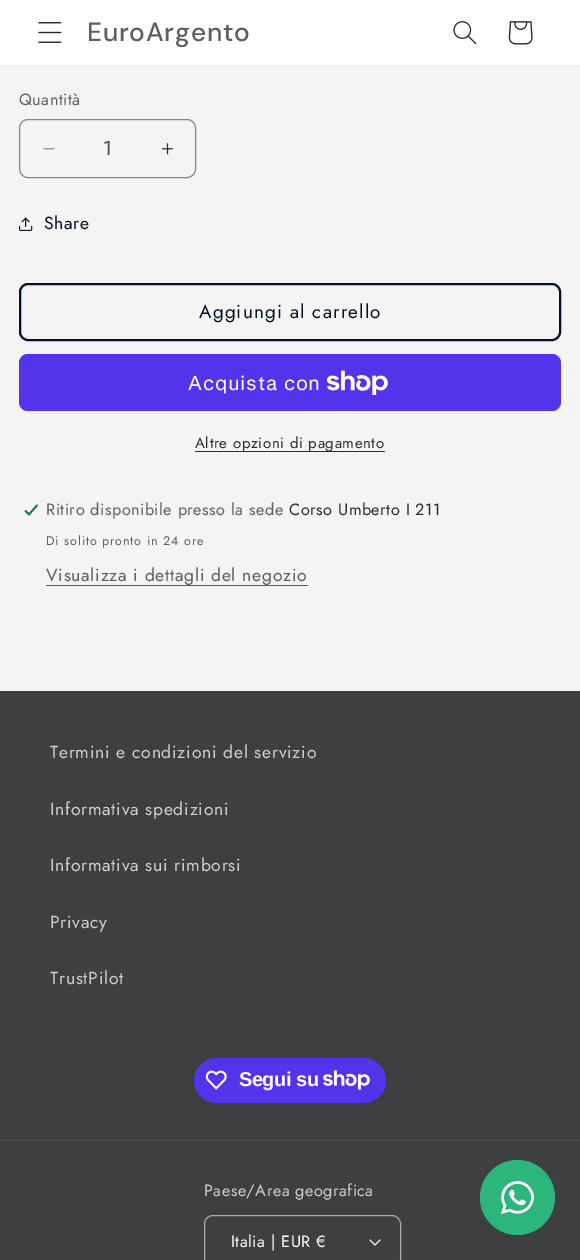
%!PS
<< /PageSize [580 1260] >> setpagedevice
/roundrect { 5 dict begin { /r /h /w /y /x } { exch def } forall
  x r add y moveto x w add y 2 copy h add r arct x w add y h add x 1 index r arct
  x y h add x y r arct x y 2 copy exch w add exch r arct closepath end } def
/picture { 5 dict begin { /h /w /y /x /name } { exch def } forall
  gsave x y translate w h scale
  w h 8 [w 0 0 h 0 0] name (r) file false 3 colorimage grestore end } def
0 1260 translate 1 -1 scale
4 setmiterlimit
0.957 setgray
0 0 580 1260 rectfill
1 setgray
0 0 580 65 rectfill
0.933 setgray
0 65 580 1 rectfill
(img1.rgb) 38 22 24 21 picture
/DMSans-Medium [26.25 0 0 -26.25 0 0] selectfont
0.365 0.369 0.373 setrgbcolor
87 41 moveto 0.75 0 (EuroArgento) ashow
(img2.rgb) 453 21 24 24 picture
(img3.rgb) 508 21 25 24 picture
/Jost-Regular [16.25 0 0 -16.25 0 0] selectfont
19 105 moveto 0.5 0 (Quantità) ashow
(img4.rgb) 43 148 12 2 picture
(img5.rgb) 161 143 13 12 picture
0.522 0.525 0.529 setrgbcolor
19.5 119.5 176 58 8.5 roundrect stroke
/Jost-Regular [20 0 0 -20 0 0] selectfont
0.286 0.29 0.294 setrgbcolor
103 155 moveto (1) show
(img6.rgb) 18 217 15 14 picture
/Jost-Regular [17.5 0 0 -17.5 0 0] selectfont
0 0.067 0.157 setrgbcolor
44 229 moveto 0.75 0 (Share) ashow
2 setlinewidth
20 284 540 56 8 roundrect stroke
/Jost-Regular [18.75 0 0 -18.75 0 0] selectfont
199 318 moveto 1.25 0 (Aggiungi al carrello) ashow
0.329 0.2 0.922 setrgbcolor
19 354 542 57 9 roundrect fill
/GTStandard-Regular [20 0 0 -20 0 0] selectfont
1 setgray
188 390 moveto 0.75 0 (Acquista con) ashow
(img7.rgb) 326 370 62 25 picture
0.169 0.173 0.176 setrgbcolor
195 451 190 1 rectfill
/Jost-Regular [15 0 0 -15 0 0] selectfont
195 448 moveto 0.6 0 (Altre opzioni di pagamento) ashow
(img8.rgb) 23 504 16 12 picture
/Jost-Regular [16.25 0 0 -16.25 0 0] selectfont
0.365 0.369 0.373 setrgbcolor
46 515 moveto 0.5 0 (Ritiro disponibile presso la sede) ashow
0.169 0.173 0.176 setrgbcolor
289 515 moveto 0.5 0 (Corso Umberto I 211) ashow
/Jost-Regular [12.5 0 0 -12.5 0 0] selectfont
0.365 0.369 0.373 setrgbcolor
46 545 moveto 0.9 0 (Di solito pronto in 24 ore) ashow
/Jost-Regular [17.5 0 0 -17.5 0 0] selectfont
46 581 moveto 0.75 0 (Visualizza i dettagli del negozio) ashow
46 585 262 1 rectfill
0.243 0.247 0.251 setrgbcolor
0 691 580 569 rectfill
0.812 setgray
50 758 moveto 0.75 0 (Termini e condizioni del servizio) ashow
50 815 moveto 0.75 0 (Informativa spedizioni) ashow
50 871 moveto 0.75 0 (Informativa sui rimborsi) ashow
50 928 moveto 0.75 0 (Privacy) ashow
50 984 moveto 0.75 0 (TrustPilot) ashow
0.329 0.2 0.922 setrgbcolor
194 1058 192 45 22.5 roundrect fill
(img9.rgb) 205 1070 22 20 picture
/LiberationSans-Bold [20 0 0 -20 0 0] selectfont
1 setgray
239 1086 moveto -0.5 0 (Segui su) ashow
(img10.rgb) 323 1070 47 20 picture
0.302 0.306 0.31 setrgbcolor
0 1140 580 1 rectfill
/Jost-Regular [16.25 0 0 -16.25 0 0] selectfont
0.812 setgray
204 1196 moveto 0.5 0 (Paese/Area geografica) ashow
(img11.rgb) 369 1239 12 7 picture
0.659 0.663 0.663 setrgbcolor
1 setlinewidth
204.5 1215.5 196 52 8.5 roundrect stroke
1 setgray
231 1247 moveto 0.5 0 (Italia | EUR €) ashow
0.176 0.714 0.486 setrgbcolor
newpath 517.5 1197.5 37.5 0 360 arc closepath fill
(img12.rgb) 501 1181 33 33 picture
showpage
